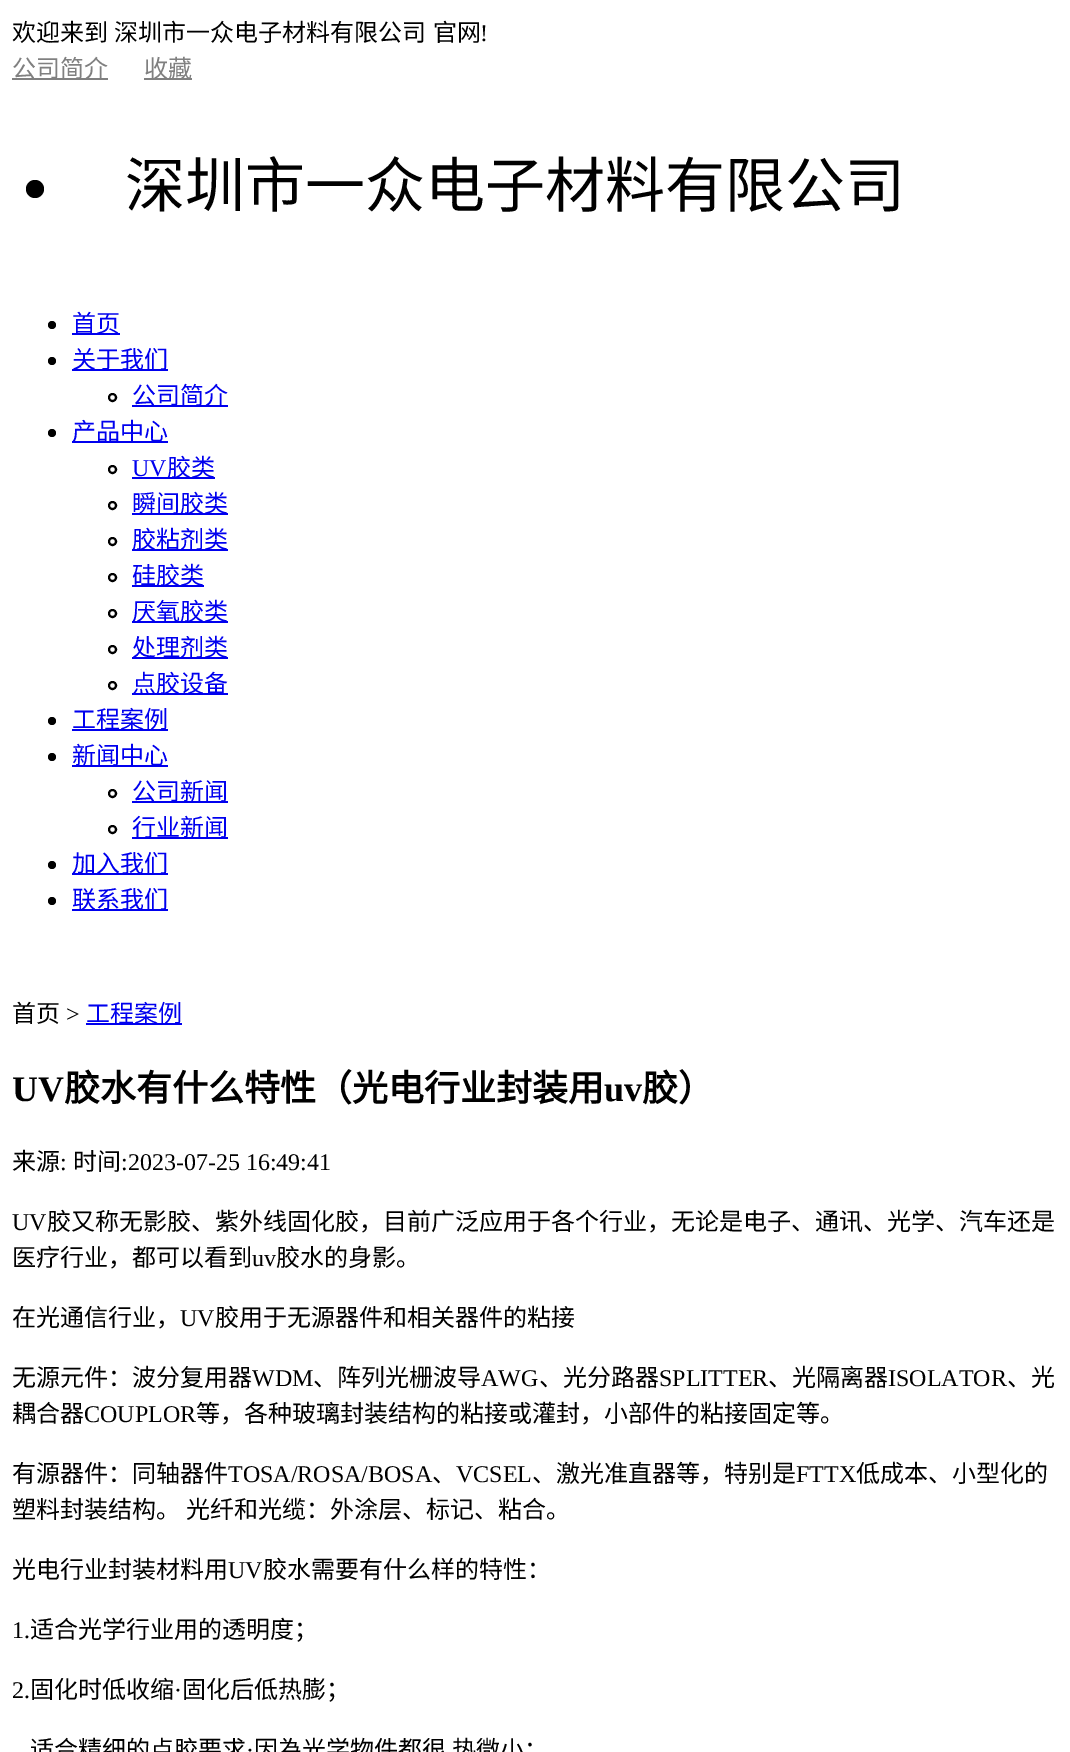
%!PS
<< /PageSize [1070 1752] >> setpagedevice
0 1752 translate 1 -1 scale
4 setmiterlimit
1 setgray
0 0 1070 1752 rectfill
/NotoSansCJKSC-Regular [24 0 0 -24 0 0] selectfont
0 setgray
12 41 moveto 1 0 32 (欢迎来到 深圳市一众电子材料有限公司 官网) widthshow
/LiberationSerif-Regular [24 0 0 -24 0 0] selectfont
480 41 moveto (!) show
0.502 setgray
12 78 96 2 rectfill
/NotoSansCJKSC-Regular [24 0 0 -24 0 0] selectfont
12 77 moveto (公司简介) show
144 78 48 2 rectfill
144 77 moveto (收藏) show
0 setgray
newpath 35 189 9 0 360 arc closepath fill
/NotoSansCJKSC-Regular [60 0 0 -60 0 0] selectfont
125 207 moveto (深圳市一众电子材料有限公司) show
newpath 52 325 4 0 360 arc closepath fill
0 0 0.933 setrgbcolor
72 333 48 2 rectfill
/NotoSansCJKSC-Regular [24 0 0 -24 0 0] selectfont
72 332 moveto (首页) show
0 setgray
newpath 52 361 4 0 360 arc closepath fill
0 0 0.933 setrgbcolor
72 369 96 2 rectfill
72 368 moveto (关于我们) show
0 setgray
2 setlinewidth
newpath 112.5 397.5 3.5 0 360 arc closepath stroke
0 0 0.933 setrgbcolor
132 405 96 2 rectfill
132 404 moveto (公司简介) show
0 setgray
newpath 52 433 4 0 360 arc closepath fill
0 0 0.933 setrgbcolor
72 441 96 2 rectfill
72 440 moveto (产品中心) show
0 setgray
newpath 112.5 469.5 3.5 0 360 arc closepath stroke
/LiberationSerif-Regular [24 0 0 -24 0 0] selectfont
0 0 0.933 setrgbcolor
132 476 moveto (UV) show
132 477 83 2 rectfill
/NotoSansCJKSC-Regular [24 0 0 -24 0 0] selectfont
167 476 moveto (胶类) show
0 setgray
newpath 112.5 505.5 3.5 0 360 arc closepath stroke
0 0 0.933 setrgbcolor
132 513 96 2 rectfill
132 512 moveto (瞬间胶类) show
0 setgray
newpath 112.5 541.5 3.5 0 360 arc closepath stroke
0 0 0.933 setrgbcolor
132 549 96 2 rectfill
132 548 moveto (胶粘剂类) show
0 setgray
newpath 112.5 577.5 3.5 0 360 arc closepath stroke
0 0 0.933 setrgbcolor
132 585 72 2 rectfill
132 584 moveto (硅胶类) show
0 setgray
newpath 112.5 613.5 3.5 0 360 arc closepath stroke
0 0 0.933 setrgbcolor
132 621 96 2 rectfill
132 620 moveto (厌氧胶类) show
0 setgray
newpath 112.5 649.5 3.5 0 360 arc closepath stroke
0 0 0.933 setrgbcolor
132 657 96 2 rectfill
132 656 moveto (处理剂类) show
0 setgray
newpath 112.5 685.5 3.5 0 360 arc closepath stroke
0 0 0.933 setrgbcolor
132 693 96 2 rectfill
132 692 moveto (点胶设备) show
0 setgray
newpath 52 721 4 0 360 arc closepath fill
0 0 0.933 setrgbcolor
72 729 96 2 rectfill
72 728 moveto (工程案例) show
0 setgray
newpath 52 757 4 0 360 arc closepath fill
0 0 0.933 setrgbcolor
72 765 96 2 rectfill
72 764 moveto (新闻中心) show
0 setgray
newpath 112.5 793.5 3.5 0 360 arc closepath stroke
0 0 0.933 setrgbcolor
132 801 96 2 rectfill
132 800 moveto (公司新闻) show
0 setgray
newpath 112.5 829.5 3.5 0 360 arc closepath stroke
0 0 0.933 setrgbcolor
132 837 96 2 rectfill
132 836 moveto (行业新闻) show
0 setgray
newpath 52 865 4 0 360 arc closepath fill
0 0 0.933 setrgbcolor
72 873 96 2 rectfill
72 872 moveto (加入我们) show
0 setgray
newpath 52 901 4 0 360 arc closepath fill
0 0 0.933 setrgbcolor
72 909 96 2 rectfill
72 908 moveto (联系我们) show
0 setgray
12 1022 moveto (首页) show
/LiberationSerif-Regular [24 0 0 -24 0 0] selectfont
66 1022 moveto (>) show
0 0 0.933 setrgbcolor
86 1023 96 2 rectfill
/NotoSansCJKSC-Regular [24 0 0 -24 0 0] selectfont
86 1022 moveto (工程案例) show
/LiberationSerif-Bold [36 0 0 -36 0 0] selectfont
0 setgray
12 1101 moveto (UV) show
/NotoSansCJKSC-Bold [36 0 0 -36 0 0] selectfont
64 1101 moveto (胶水有什么特性（光电行业封装用) show
/LiberationSerif-Bold [36 0 0 -36 0 0] selectfont
604 1101 moveto (uv) show
/NotoSansCJKSC-Bold [36 0 0 -36 0 0] selectfont
642 1101 moveto (胶）) show
/NotoSansCJKSC-Regular [24 0 0 -24 0 0] selectfont
12 1170 moveto (来源) show
/LiberationSerif-Regular [24 0 0 -24 0 0] selectfont
60 1170 moveto (:) show
/NotoSansCJKSC-Regular [24 0 0 -24 0 0] selectfont
73 1170 moveto (时间) show
/LiberationSerif-Regular [24 0 0 -24 0 0] selectfont
121 1170 moveto (:2023-07-25 16:49:41) show
12 1230 moveto (UV) show
/NotoSansCJKSC-Regular [24 0 0 -24 0 0] selectfont
47 1230 moveto (胶又称无影胶、紫外线固化胶，目前广泛应用于各个行业，无论是电子、通讯、光学、汽车还是) show
12 1266 moveto (医疗行业，都可以看到) show
/LiberationSerif-Regular [24 0 0 -24 0 0] selectfont
252 1266 moveto (uv) show
/NotoSansCJKSC-Regular [24 0 0 -24 0 0] selectfont
276 1266 moveto (胶水的身影。) show
12 1326 moveto (在光通信行业，) show
/LiberationSerif-Regular [24 0 0 -24 0 0] selectfont
180 1326 moveto (UV) show
/NotoSansCJKSC-Regular [24 0 0 -24 0 0] selectfont
215 1326 moveto (胶用于无源器件和相关器件的粘接) show
12 1386 moveto (无源元件：波分复用器) show
/LiberationSerif-Regular [24 0 0 -24 0 0] selectfont
252 1386 moveto (WDM) show
/NotoSansCJKSC-Regular [24 0 0 -24 0 0] selectfont
313 1386 moveto (、阵列光栅波导) show
/LiberationSerif-Regular [24 0 0 -24 0 0] selectfont
481 1386 moveto (AWG) show
/NotoSansCJKSC-Regular [24 0 0 -24 0 0] selectfont
539 1386 moveto (、光分路器) show
/LiberationSerif-Regular [24 0 0 -24 0 0] selectfont
659 1386 moveto (SPLITTER) show
/NotoSansCJKSC-Regular [24 0 0 -24 0 0] selectfont
768 1386 moveto (、光隔离器) show
/LiberationSerif-Regular [24 0 0 -24 0 0] selectfont
888 1386 moveto (ISOLATOR) show
/NotoSansCJKSC-Regular [24 0 0 -24 0 0] selectfont
1007 1386 moveto (、光) show
12 1422 moveto (耦合器) show
/LiberationSerif-Regular [24 0 0 -24 0 0] selectfont
84 1422 moveto (COUPLOR) show
/NotoSansCJKSC-Regular [24 0 0 -24 0 0] selectfont
196 1422 moveto (等，各种玻璃封装结构的粘接或灌封，小部件的粘接固定等。) show
12 1482 moveto (有源器件：同轴器件) show
/LiberationSerif-Regular [24 0 0 -24 0 0] selectfont
228 1482 moveto (TOSA/ROSA/BOSA) show
/NotoSansCJKSC-Regular [24 0 0 -24 0 0] selectfont
432 1482 moveto (、) show
/LiberationSerif-Regular [24 0 0 -24 0 0] selectfont
456 1482 moveto (VCSEL) show
/NotoSansCJKSC-Regular [24 0 0 -24 0 0] selectfont
532 1482 moveto (、激光准直器等，特别是) show
/LiberationSerif-Regular [24 0 0 -24 0 0] selectfont
796 1482 moveto (FTTX) show
/NotoSansCJKSC-Regular [24 0 0 -24 0 0] selectfont
856 1482 moveto (低成本、小型化的) show
12 1518 moveto 1 0 32 (塑料封装结构。 光纤和光缆：外涂层、标记、粘合。) widthshow
12 1578 moveto (光电行业封装材料用) show
/LiberationSerif-Regular [24 0 0 -24 0 0] selectfont
228 1578 moveto (UV) show
/NotoSansCJKSC-Regular [24 0 0 -24 0 0] selectfont
263 1578 moveto (胶水需要有什么样的特性：) show
/LiberationSerif-Regular [24 0 0 -24 0 0] selectfont
12 1638 moveto (1.) show
/NotoSansCJKSC-Regular [24 0 0 -24 0 0] selectfont
30 1638 moveto (适合光学行业用的透明度；) show
/LiberationSerif-Regular [24 0 0 -24 0 0] selectfont
12 1698 moveto (2.) show
/NotoSansCJKSC-Regular [24 0 0 -24 0 0] selectfont
30 1698 moveto (固化时低收缩) show
/LiberationSerif-Regular [24 0 0 -24 0 0] selectfont
174 1698 moveto (·) show
/NotoSansCJKSC-Regular [24 0 0 -24 0 0] selectfont
182 1698 moveto (固化后低热膨；) show
30 1758 moveto (适合精细的点胶要求) show
/LiberationSerif-Regular [24 0 0 -24 0 0] selectfont
246 1758 moveto (·) show
/NotoSansCJKSC-Regular [24 0 0 -24 0 0] selectfont
254 1758 moveto 1 0 32 (因為光学物件都很 热微小；) widthshow
showpage
